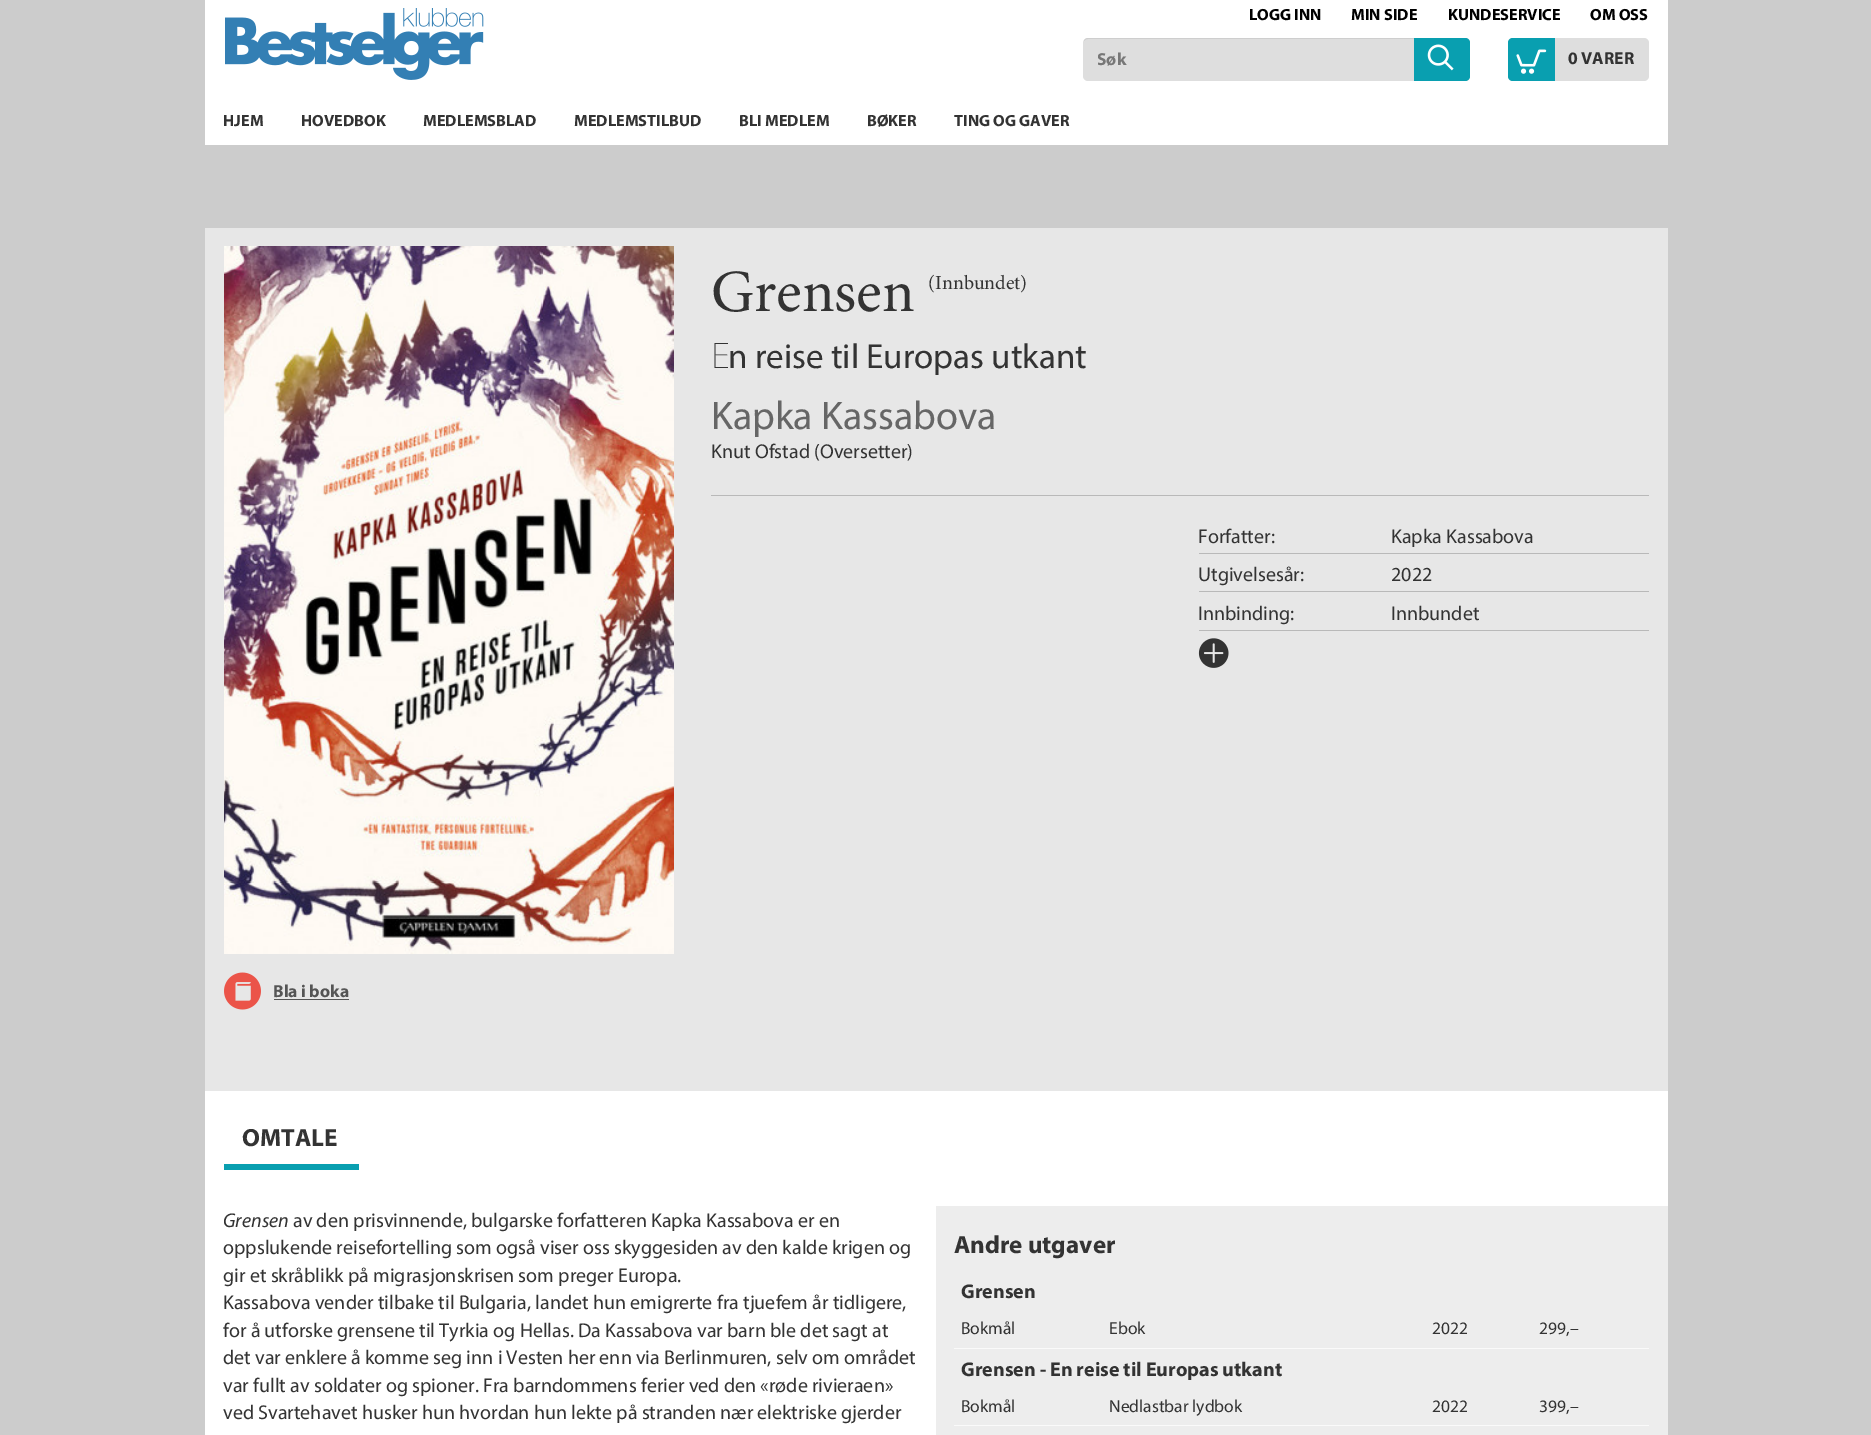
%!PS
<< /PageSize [1871 1435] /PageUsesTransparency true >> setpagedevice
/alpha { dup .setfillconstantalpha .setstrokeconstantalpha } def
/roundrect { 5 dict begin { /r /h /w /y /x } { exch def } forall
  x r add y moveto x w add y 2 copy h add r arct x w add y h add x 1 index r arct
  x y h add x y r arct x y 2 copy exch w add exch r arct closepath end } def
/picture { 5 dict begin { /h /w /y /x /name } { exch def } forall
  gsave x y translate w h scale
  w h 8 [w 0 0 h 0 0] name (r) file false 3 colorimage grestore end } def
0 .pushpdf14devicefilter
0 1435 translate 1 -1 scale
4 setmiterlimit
0.8 setgray
0 0 1871 1435 rectfill
1 setgray
205 0 1463 145 rectfill
/Myriad-Bold [16.25 0 0 -16.25 0 0] selectfont
0 setgray
1249 20 moveto (LOGG INN) show
1351 20 moveto (MIN SIDE) show
1448 20 moveto (KUNDESERVICE) show
1590 20 moveto (OM OSS) show
(img1.rgb) 225 8 259 72 picture
0.871 setgray
1083 38 387 43 5 roundrect fill
0.07 alpha
0 setgray
newpath 1088 39 moveto 1465 39 lineto 1468 39 1470 41 1470 44 curveto 1470 43 lineto 1470 40 1468 38 1465 38 curveto 1088 38 lineto 1086 38 1084 39 1084 41 curveto 1085 40 1086 39 1088 39 curveto closepath fill
gsave
1098 48 316 22 rectclip
/Myriad-Bold [17.5 0 0 -17.5 0 0] selectfont
1 alpha
0.467 setgray
1097 65 moveto (Søk) show
grestore
1 alpha
0.035 0.624 0.69 setrgbcolor
newpath 1414 38 moveto 1465 38 lineto 1468 38 1470 40 1470 43 curveto 1470 76 lineto 1470 79 1468 81 1465 81 curveto 1414 81 lineto closepath fill
(img2.rgb) 1427 44 27 27 picture
0.871 setgray
1508 38 141 43 5 roundrect fill
0.035 0.624 0.69 setrgbcolor
newpath 1513 38 moveto 1555 38 lineto 1555 81 lineto 1513 81 lineto 1510 81 1508 79 1508 76 curveto 1508 43 lineto 1508 40 1510 38 1513 38 curveto closepath fill
(img3.rgb) 1516 49 31 25 picture
/Myriad-Bold [17.5 0 0 -17.5 0 0] selectfont
0.2 setgray
1568 64 moveto (0 VARER) show
/Myriad-Bold [16.25 0 0 -16.25 0 0] selectfont
223 126 moveto (HJEM) show
301 126 moveto (HOVEDBOK) show
423 126 moveto (MEDLEMSBLAD) show
574 126 moveto (MEDLEMSTILBUD) show
739 126 moveto (BLI MEDLEM) show
867 126 moveto (BØKER) show
954 126 moveto (TING OG GAVER) show
0.906 setgray
205 228 1463 863 rectfill
0.725 setgray
711 495 938 1 rectfill
/Minion-Regular [60 0 0 -60 0 0] selectfont
0.2 setgray
711 311 moveto (Grensen) show
/Minion-Regular [20 0 0 -20 0 0] selectfont
928 289 moveto (\(Innbundet\)) show
/NotoSans-Thin [35 0 0 -35 0 0] selectfont
711 368 moveto (E) show
/Myriad-Regular [35 0 0 -35 0 0] selectfont
728 368 moveto (n reise til Europas utkant) show
/Myriad-Regular [40 0 0 -40 0 0] selectfont
0.4 setgray
711 429 moveto (Kapka Kassabova) show
/Myriad-Regular [20 0 0 -20 0 0] selectfont
0.2 setgray
711 458 moveto (Knut Ofstad \(Oversetter\)) show
0.725 setgray
1199 553 450 1 rectfill
0.2 setgray
1198 543 moveto (Forfatter:) show
1391 543 moveto (Kapka Kassabova) show
0.725 setgray
1199 591 450 1 rectfill
0.2 setgray
1198 581 moveto (Utgivelsesår:) show
1391 581 moveto (2022) show
0.725 setgray
1199 630 450 1 rectfill
0.2 setgray
1198 620 moveto (Innbinding:) show
1391 620 moveto (Innbundet) show
(img4.rgb) 1198 638 31 30 picture
(img5.rgb) 224 246 450 708 picture
(img6.rgb) 224 972 37 38 picture
/Myriad-Bold [17.5 0 0 -17.5 0 0] selectfont
0.333 setgray
273 997 moveto (Bla i boka) show
274 999 75 1 rectfill
1 setgray
205 1091 1463 344 rectfill
0.035 0.624 0.69 setrgbcolor
224 1164 135 6 rectfill
/Myriad-Bold [25 0 0 -25 0 0] selectfont
0.2 setgray
242 1146 moveto (OMTALE) show
/Myriad-Italic [20 0 0 -20 0 0] selectfont
223 1227 moveto (Grensen) show
/Myriad-Regular [20 0 0 -20 0 0] selectfont
293 1227 moveto (av den prisvinnende, bulgarske forfatteren Kapka Kassabova er en) show
223 1254 moveto (oppslukende reisefortelling som også viser oss skyggesiden av den kalde krigen og) show
223 1282 moveto (gir et skråblikk på migrasjonskrisen som preger Europa.) show
223 1309 moveto (Kassabova vender tilbake til Bulgaria, landet hun emigrerte fra tjuefem år tidligere,) show
223 1337 moveto (for å utforske grensene til Tyrkia og Hellas. Da Kassabova var barn ble det sagt at) show
223 1364 moveto (det var enklere å komme seg inn i Vesten her enn via Berlinmuren, selv om området) show
223 1392 moveto (var fullt av soldater og spioner. Fra barndommens ferier ved den «røde rivieraen») show
223 1419 moveto (ved Svartehavet husker hun hvordan hun lekte på stranden nær elektriske gjerder) show
0.929 setgray
936 1206 732 229 rectfill
/Myriad-Bold [25 0 0 -25 0 0] selectfont
0.2 setgray
954 1253 moveto (Andre utgaver) show
/Myriad-Bold [20 0 0 -20 0 0] selectfont
961 1298 moveto (Grensen) show
0.98 setgray
954 1348 695 1 rectfill
/Myriad-Regular [17.5 0 0 -17.5 0 0] selectfont
0.2 setgray
961 1334 moveto (Bokmål) show
1109 1334 moveto (Ebok) show
1432 1334 moveto (2022) show
1539 1334 moveto (299,–) show
/Myriad-Bold [20 0 0 -20 0 0] selectfont
961 1376 moveto (Grensen - En reise til Europas utkant) show
0.98 setgray
954 1425 695 1 rectfill
/Myriad-Regular [17.5 0 0 -17.5 0 0] selectfont
0.2 setgray
961 1412 moveto (Bokmål) show
1109 1412 moveto (Nedlastbar lydbok) show
1432 1412 moveto (2022) show
1539 1412 moveto (399,–) show
.poppdf14devicefilter showpage
